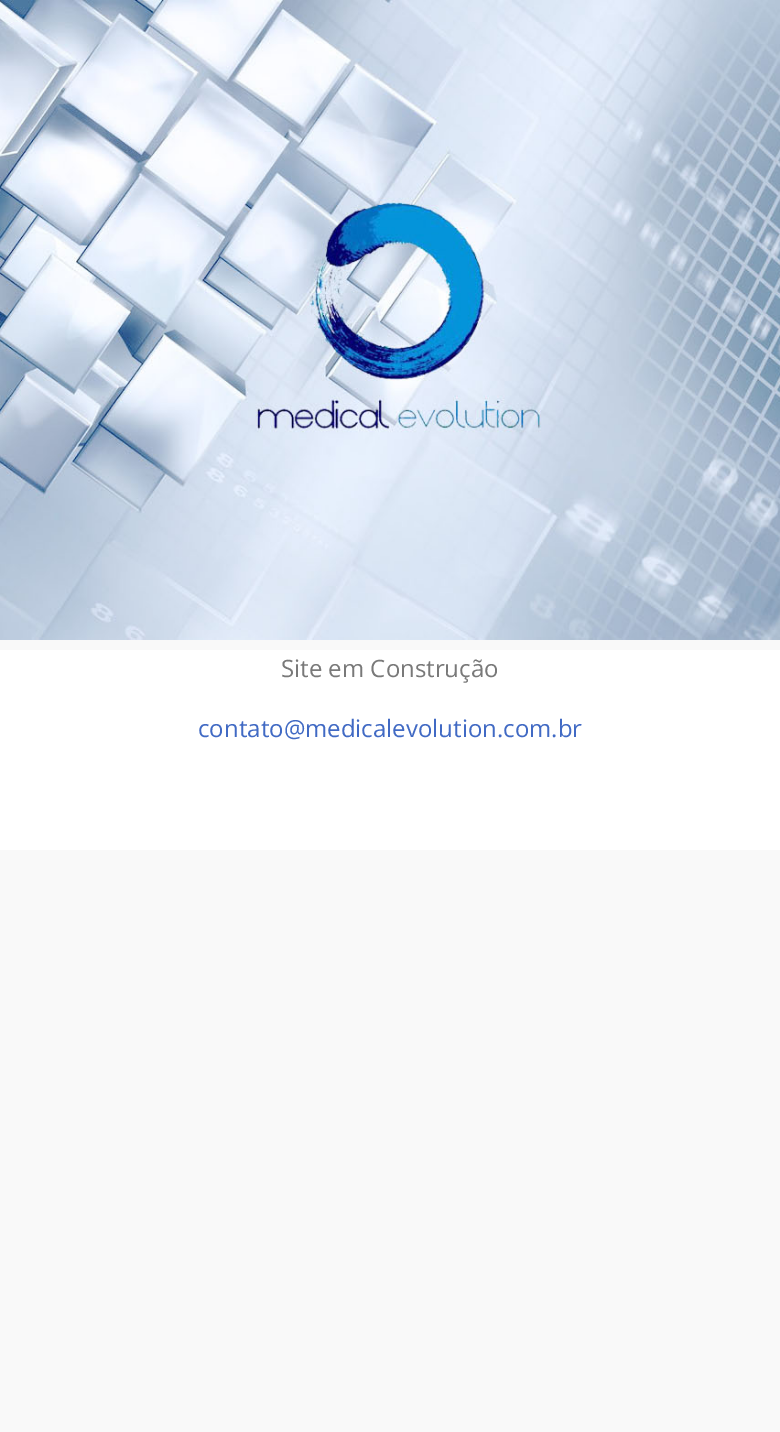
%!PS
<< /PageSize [780 1432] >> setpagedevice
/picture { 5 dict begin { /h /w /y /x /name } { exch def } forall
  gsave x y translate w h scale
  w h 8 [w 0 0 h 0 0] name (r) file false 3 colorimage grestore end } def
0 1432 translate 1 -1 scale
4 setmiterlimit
0.976 setgray
0 0 780 1432 rectfill
(img1.rgb) 0 0 780 640 picture
1 setgray
0 650 780 200 rectfill
/OpenSans-Regular [24 0 0 -24 0 0] selectfont
0.475 setgray
281 677 moveto (Site em Construção) show
0.255 0.416 0.769 setrgbcolor
198 737 moveto (contato@medicalevolution.com.br) show
showpage
